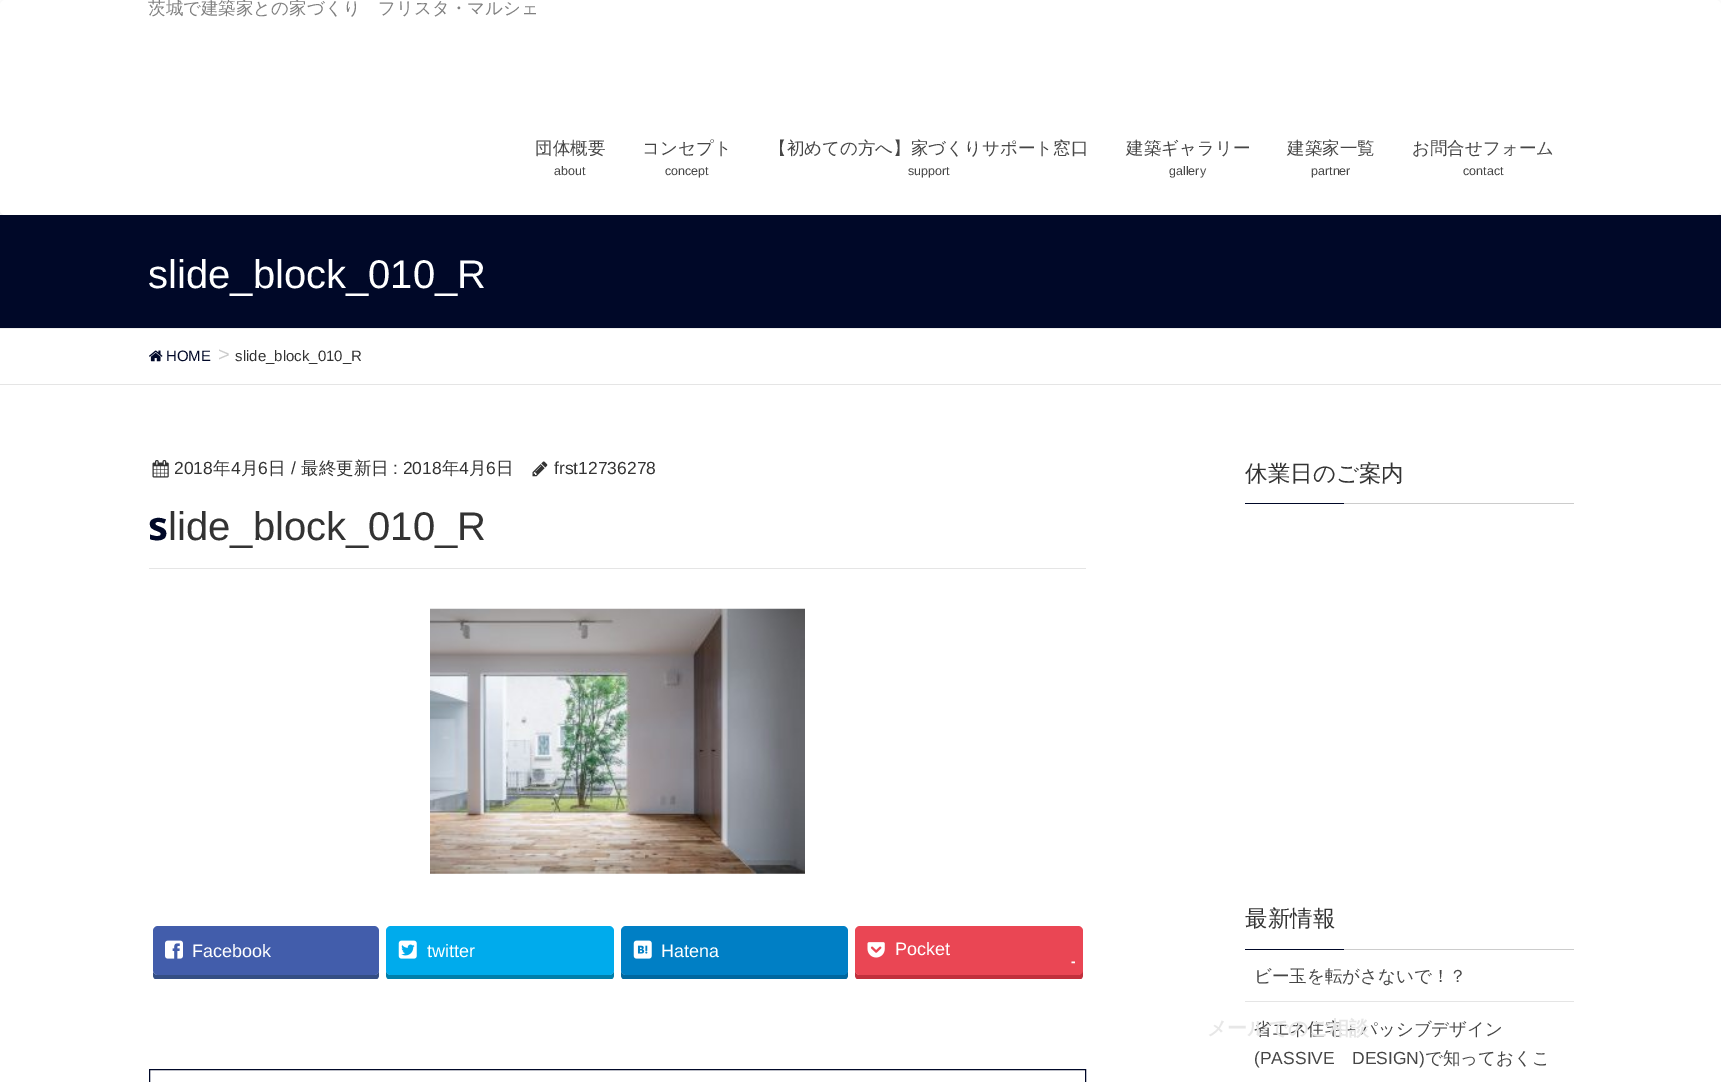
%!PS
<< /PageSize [1721 1082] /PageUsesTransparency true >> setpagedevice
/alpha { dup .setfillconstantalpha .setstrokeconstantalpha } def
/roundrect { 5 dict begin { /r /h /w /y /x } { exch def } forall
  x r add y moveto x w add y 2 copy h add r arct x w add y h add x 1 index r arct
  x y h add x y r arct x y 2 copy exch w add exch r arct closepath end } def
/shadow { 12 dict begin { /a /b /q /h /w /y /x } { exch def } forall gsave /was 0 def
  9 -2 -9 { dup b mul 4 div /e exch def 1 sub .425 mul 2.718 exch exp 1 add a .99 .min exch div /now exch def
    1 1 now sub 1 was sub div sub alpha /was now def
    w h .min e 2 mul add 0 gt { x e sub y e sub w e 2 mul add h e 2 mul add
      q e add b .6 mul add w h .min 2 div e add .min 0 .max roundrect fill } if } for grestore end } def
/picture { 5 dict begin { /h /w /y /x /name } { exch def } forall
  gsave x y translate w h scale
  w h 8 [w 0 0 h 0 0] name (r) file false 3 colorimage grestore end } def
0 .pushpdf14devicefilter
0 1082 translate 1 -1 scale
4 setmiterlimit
1 setgray
0 0 1721 1082 rectfill
0 0.031 0.157 setrgbcolor
0 215 1721 113 rectfill
0 setgray
0 1 1721 215 5 2 0.1 shadow
1 setgray
0 0 1721 215 5 roundrect fill
/WenQuanYiZenHei-Medium [17.5 0 0 -17.5 0 0] selectfont
0.502 setgray
148 14 moveto (茨城で建築家との家づくり　フリスタ・マルシェ) show
0.275 setgray
535 154 moveto (団体概要) show
/LiberationSans-Regular [12.5 0 0 -12.5 0 0] selectfont
554 175 moveto (about) show
/WenQuanYiZenHei-Medium [17.5 0 0 -17.5 0 0] selectfont
642 154 moveto (コンセプト) show
/LiberationSans-Regular [12.5 0 0 -12.5 0 0] selectfont
665 175 moveto (concept) show
/WenQuanYiZenHei-Medium [17.5 0 0 -17.5 0 0] selectfont
769 154 moveto (【初めての方へ】家づくりサポート窓口) show
/LiberationSans-Regular [12.5 0 0 -12.5 0 0] selectfont
908 175 moveto (support) show
/WenQuanYiZenHei-Medium [17.5 0 0 -17.5 0 0] selectfont
1126 154 moveto (建築ギャラリー) show
/LiberationSans-Regular [12.5 0 0 -12.5 0 0] selectfont
1169 175 moveto (gallery) show
/WenQuanYiZenHei-Medium [17.5 0 0 -17.5 0 0] selectfont
1287 154 moveto (建築家一覧) show
/LiberationSans-Regular [12.5 0 0 -12.5 0 0] selectfont
1311 175 moveto (partner) show
/WenQuanYiZenHei-Medium [17.5 0 0 -17.5 0 0] selectfont
1412 154 moveto (お問合せフォーム) show
/LiberationSans-Regular [12.5 0 0 -12.5 0 0] selectfont
1463 175 moveto (contact) show
0.933 setgray
0 328 1721 1 rectfill
/LiberationSans-Regular [40 0 0 -40 0 0] selectfont
1 setgray
148 288 moveto (slide_block_010_R) show
0.898 setgray
0 384 1721 1 rectfill
(img1.rgb) 149 350 14 12 picture
/LiberationSans-Regular [15 0 0 -15 0 0] selectfont
0 0.031 0.157 setrgbcolor
166 361 moveto (HOME) show
/LiberationSans-Regular [20 0 0 -20 0 0] selectfont
0.8 setgray
218 361 moveto (>) show
/LiberationSans-Regular [15 0 0 -15 0 0] selectfont
0.2 setgray
235 361 moveto (slide_block_010_R) show
0.898 setgray
149 568 937 1 rectfill
(img2.rgb) 152 460 17 18 picture
/LiberationSans-Regular [17.5 0 0 -17.5 0 0] selectfont
0.2 setgray
174 474 moveto (2018) show
/WenQuanYiZenHei-Medium [17.5 0 0 -17.5 0 0] selectfont
213 474 moveto (年) show
/LiberationSans-Regular [17.5 0 0 -17.5 0 0] selectfont
231 474 moveto (4) show
/WenQuanYiZenHei-Medium [17.5 0 0 -17.5 0 0] selectfont
241 474 moveto (月) show
/LiberationSans-Regular [17.5 0 0 -17.5 0 0] selectfont
258 474 moveto (6) show
/WenQuanYiZenHei-Medium [17.5 0 0 -17.5 0 0] selectfont
268 474 moveto (日) show
/LiberationSans-Regular [17.5 0 0 -17.5 0 0] selectfont
291 474 moveto (/) show
/WenQuanYiZenHei-Medium [17.5 0 0 -17.5 0 0] selectfont
301 474 moveto (最終更新日) show
/LiberationSans-Regular [17.5 0 0 -17.5 0 0] selectfont
393 474 moveto (: 2018) show
/WenQuanYiZenHei-Medium [17.5 0 0 -17.5 0 0] selectfont
442 474 moveto (年) show
/LiberationSans-Regular [17.5 0 0 -17.5 0 0] selectfont
459 474 moveto (4) show
/WenQuanYiZenHei-Medium [17.5 0 0 -17.5 0 0] selectfont
469 474 moveto (月) show
/LiberationSans-Regular [17.5 0 0 -17.5 0 0] selectfont
486 474 moveto (6) show
/WenQuanYiZenHei-Medium [17.5 0 0 -17.5 0 0] selectfont
496 474 moveto (日) show
(img3.rgb) 532 461 16 16 picture
/LiberationSans-Regular [17.5 0 0 -17.5 0 0] selectfont
554 474 moveto (frst12736278) show
/NotoSans-Bold [40 0 0 -40 0 0] selectfont
0 0.031 0.157 setrgbcolor
148 540 moveto (s) show
/LiberationSans-Regular [40 0 0 -40 0 0] selectfont
0.2 setgray
168 540 moveto (lide_block_010_R) show
(img4.rgb) 430 608 375 266 picture
gsave
149 898 937 81 rectclip
0.204 0.306 0.518 setrgbcolor
newpath 153 972 moveto 153 975 lineto 153 978 155 980 158 980 curveto 374 980 lineto 377 980 379 978 379 975 curveto 379 934 lineto 379 970 lineto 379 973 377 975 374 975 curveto 158 975 lineto 156 975 154 974 153 972 curveto closepath fill
grestore
0.259 0.365 0.671 setrgbcolor
153 926 226 49 5 roundrect fill
(img5.rgb) 165 940 18 19 picture
/LiberationSans-Regular [18 0 0 -18 0 0] selectfont
1 setgray
192 957 moveto (Facebook) show
gsave
149 898 937 81 rectclip
0 0.494 0.667 setrgbcolor
newpath 386 934 moveto 386 975 lineto 386 978 388 980 391 980 curveto 609 980 lineto 612 980 614 978 614 975 curveto 614 934 lineto 614 970 lineto 614 973 612 975 609 975 curveto 391 975 lineto 388 975 386 973 386 970 curveto closepath fill
grestore
0 0.671 0.925 setrgbcolor
386 926 228 49 5 roundrect fill
(img6.rgb) 398 940 19 19 picture
1 setgray
427 957 moveto (twitter) show
gsave
149 898 937 81 rectclip
0 0.404 0.624 setrgbcolor
newpath 621 934 moveto 621 975 lineto 621 978 623 980 626 980 curveto 843 980 lineto 846 980 848 978 848 975 curveto 848 936 lineto 848 934 lineto 848 970 lineto 848 973 845 975 842 975 curveto 626 975 lineto 623 975 621 973 621 970 curveto closepath fill
grestore
0 0.498 0.773 setrgbcolor
621 926 227 49 5 roundrect fill
(img7.rgb) 633 940 19 19 picture
1 setgray
661 957 moveto (Hatena) show
gsave
149 898 937 81 rectclip
0.757 0.188 0.235 setrgbcolor
newpath 855 970 moveto 855 975 lineto 855 978 857 980 860 980 curveto 1078 980 lineto 1081 980 1083 978 1083 975 curveto 1083 936 lineto 1082 934 lineto 1082 970 lineto 1082 973 1080 975 1078 975 curveto 860 975 lineto 857 975 855 973 855 970 curveto closepath fill
grestore
0.918 0.275 0.329 setrgbcolor
855 926 228 49 5 roundrect fill
(img8.rgb) 867 942 18 16 picture
1 setgray
895 955 moveto (Pocket) show
/LiberationSans-Bold [14 0 0 -14 0 0] selectfont
1071 966 moveto (-) show
0 0.031 0.157 setrgbcolor
149.5 1069.5 936 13 rectstroke
0.8 setgray
1344 503 230 1 rectfill
/WenQuanYiZenHei-Medium [22.5 0 0 -22.5 0 0] selectfont
0.2 setgray
1245 481 moveto (休業日のご案内) show
0 0.031 0.157 setrgbcolor
1245 503 99 1 rectfill
0.8 setgray
1344 949 230 1 rectfill
0.2 setgray
1245 926 moveto (最新情報) show
0 0.031 0.157 setrgbcolor
1245 949 99 1 rectfill
0.898 setgray
1245 1001 329 1 rectfill
/WenQuanYiZenHei-Medium [17.5 0 0 -17.5 0 0] selectfont
0.275 setgray
1254 982 moveto (ビー玉を転がさないで！？) show
1254 1035 moveto (省エネ住宅＋パッシブデザイン) show
/LiberationSans-Regular [17.5 0 0 -17.5 0 0] selectfont
1254 1064 moveto (\(PASSIVE) show
1352 1064 moveto (DESIGN\)) show
/WenQuanYiZenHei-Medium [17.5 0 0 -17.5 0 0] selectfont
1425 1064 moveto (で知っておくこ) show
/WenQuanYiZenHei-Bold [20 0 0 -20 0 0] selectfont
0.906 setgray
1207 1035 moveto (メールでのご相談) show
.poppdf14devicefilter showpage
